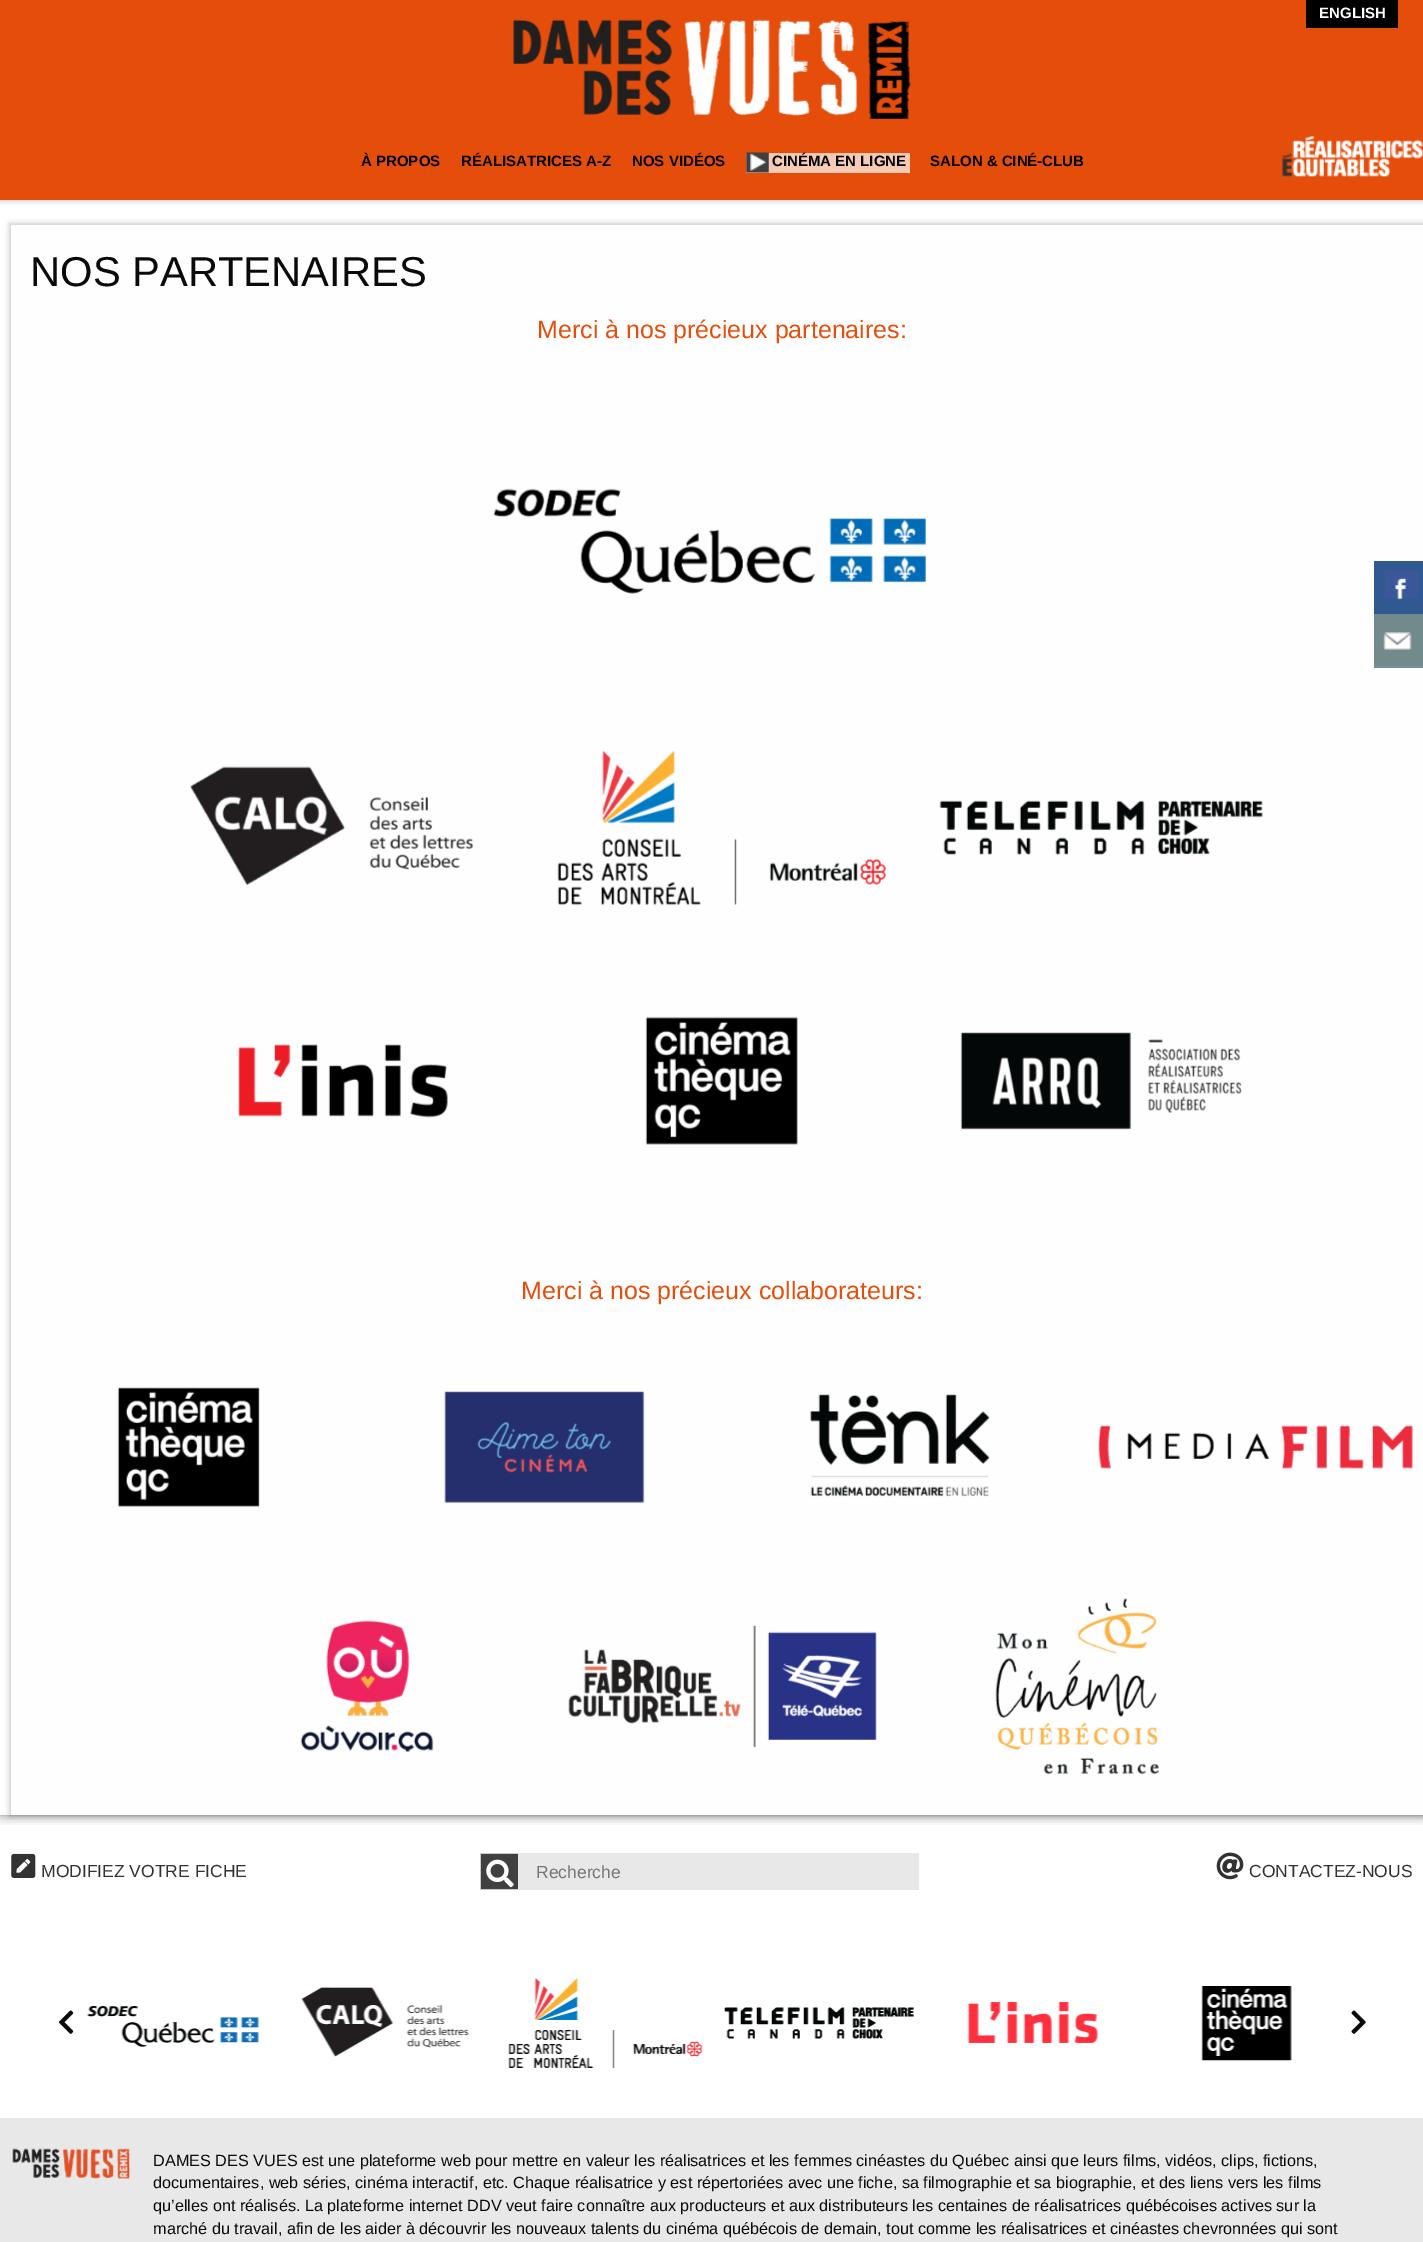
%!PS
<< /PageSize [1423 2242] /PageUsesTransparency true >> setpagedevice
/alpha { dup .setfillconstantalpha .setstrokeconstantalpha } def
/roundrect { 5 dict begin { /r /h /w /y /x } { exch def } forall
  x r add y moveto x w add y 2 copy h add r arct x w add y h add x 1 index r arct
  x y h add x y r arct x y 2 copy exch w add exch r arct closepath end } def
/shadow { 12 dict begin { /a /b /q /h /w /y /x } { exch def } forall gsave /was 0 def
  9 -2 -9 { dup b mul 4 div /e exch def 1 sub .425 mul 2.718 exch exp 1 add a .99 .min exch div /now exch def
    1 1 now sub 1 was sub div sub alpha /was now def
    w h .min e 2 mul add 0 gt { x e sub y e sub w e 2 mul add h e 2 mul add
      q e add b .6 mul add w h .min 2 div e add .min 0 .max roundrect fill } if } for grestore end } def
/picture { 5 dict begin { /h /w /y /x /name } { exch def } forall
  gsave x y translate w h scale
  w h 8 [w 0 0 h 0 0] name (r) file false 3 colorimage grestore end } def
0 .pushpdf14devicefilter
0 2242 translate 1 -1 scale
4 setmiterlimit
1 setgray
0 0 1423 2242 rectfill
gsave
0 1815 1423 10 rectclip
0.039 setgray
0 0 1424 1815 0 6 0.5 shadow
grestore
0 setgray
0 0 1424 200 0 3 0.32 shadow
0.898 0.302 0.043 setrgbcolor
0 0 1423 200 rectfill
0 setgray
1306 0 92 28 rectfill
/LiberationSans-Bold [15 0 0 -15 0 0] selectfont
1 setgray
1319 18 moveto (ENGLISH) show
(img1.rgb) 513 19 398 100 picture
0 setgray
361 166 moveto (À PROPOS) show
461 166 moveto (RÉALISATRICES A-Z) show
632 166 moveto (NOS VIDÉOS) show
0.969 0.792 0.714 setrgbcolor
746 153 164 20 rectfill
(img2.rgb) 746 152 23 21 picture
0 setgray
772 166 moveto (CINÉMA EN LIGNE) show
930 166 moveto (SALON & CINÉ-CLUB) show
(img3.rgb) 1282 136 141 41 picture
10 224 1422 1592 0 3 0.25 shadow
0.996 setgray
11 225 1412 1590 rectfill
/LiberationSans-Regular [41.75 0 0 -41.75 0 0] selectfont
0.039 setgray
30 286 moveto (NOS PARTENAIRES) show
/LiberationSans-Regular [25 0 0 -25 0 0] selectfont
0.898 0.302 0.043 setrgbcolor
537 338 moveto (Merci à nos précieux partenaires:) show
(img4.rgb) 493 488 433 106 picture
(img5.rgb) 190 766 283 119 picture
(img6.rgb) 557 750 329 155 picture
(img7.rgb) 939 800 324 55 picture
(img8.rgb) 238 1044 210 74 picture
(img9.rgb) 645 1016 153 129 picture
(img10.rgb) 960 1032 282 98 picture
521 1299 moveto (Merci à nos précieux collaborateurs:) show
(img11.rgb) 117 1387 143 120 picture
(img12.rgb) 444 1391 201 112 picture
(img13.rgb) 809 1394 181 103 picture
(img14.rgb) 1098 1425 315 44 picture
(img15.rgb) 300 1620 134 132 picture
(img16.rgb) 568 1625 309 123 picture
(img17.rgb) 995 1598 164 177 picture
(img18.rgb) 11 1853 25 25 picture
/LiberationSans-Regular [17.5 0 0 -17.5 0 0] selectfont
0.196 setgray
41 1877 moveto (MODIFIEZ VOTRE FICHE) show
0.251 0.251 0.255 setrgbcolor
481 1854 37 35 rectfill
0.792 setgray
480 1853 38 1 rectfill
480 1889 38 1 rectfill
480 1853 1 37 rectfill
(img19.rgb) 486 1859 28 29 picture
0.91 setgray
518 1853 401 37 rectfill
0.459 setgray
536 1878 moveto (Recherche) show
(img20.rgb) 1216 1852 28 28 picture
0.196 setgray
1249 1877 moveto (CONTACTEZ-NOUS) show
(img21.rgb) 86 2005 173 42 picture
(img22.rgb) 301 1987 168 70 picture
(img23.rgb) 508 1978 195 90 picture
(img24.rgb) 724 2007 190 32 picture
(img25.rgb) 967 2002 131 41 picture
(img26.rgb) 1201 1986 91 75 picture
(img27.rgb) 59 2010 15 24 picture
(img28.rgb) 1351 2010 15 24 picture
0.91 setgray
0 2118 1423 124 rectfill
(img29.rgb) 12 2148 119 31 picture
/LiberationSans-Regular [16.25 0 0 -16.25 0 0] selectfont
0.039 setgray
153 2166 moveto (DAMES DES VUES est une plateforme web pour mettre en valeur les réalisatrices et les femmes cinéastes du Québec ainsi que leurs films, vidéos, clips, fictions,) show
153 2188 moveto (documentaires, web séries, cinéma interactif, etc. Chaque réalisatrice y est répertoriées avec une fiche, sa filmographie et sa biographie, et des liens vers les films) show
153 2211 moveto (qu’elles ont réalisés. La plateforme internet DDV veut faire connaître aux producteurs et aux distributeurs les centaines de réalisatrices québécoises actives sur la) show
153 2234 moveto (marché du travail, afin de les aider à découvrir les nouveaux talents du cinéma québécois de demain, tout comme les réalisatrices et cinéastes chevronnées qui sont) show
0.188 0.345 0.569 setrgbcolor
1374 561 49 53 rectfill
(img30.rgb) 1384 570 35 29 picture
0.451 0.541 0.553 setrgbcolor
1374 614 49 54 rectfill
0.506 0.588 0.596 setrgbcolor
1374 666 49 1 rectfill
(img31.rgb) 1383 632 29 18 picture
.poppdf14devicefilter showpage
